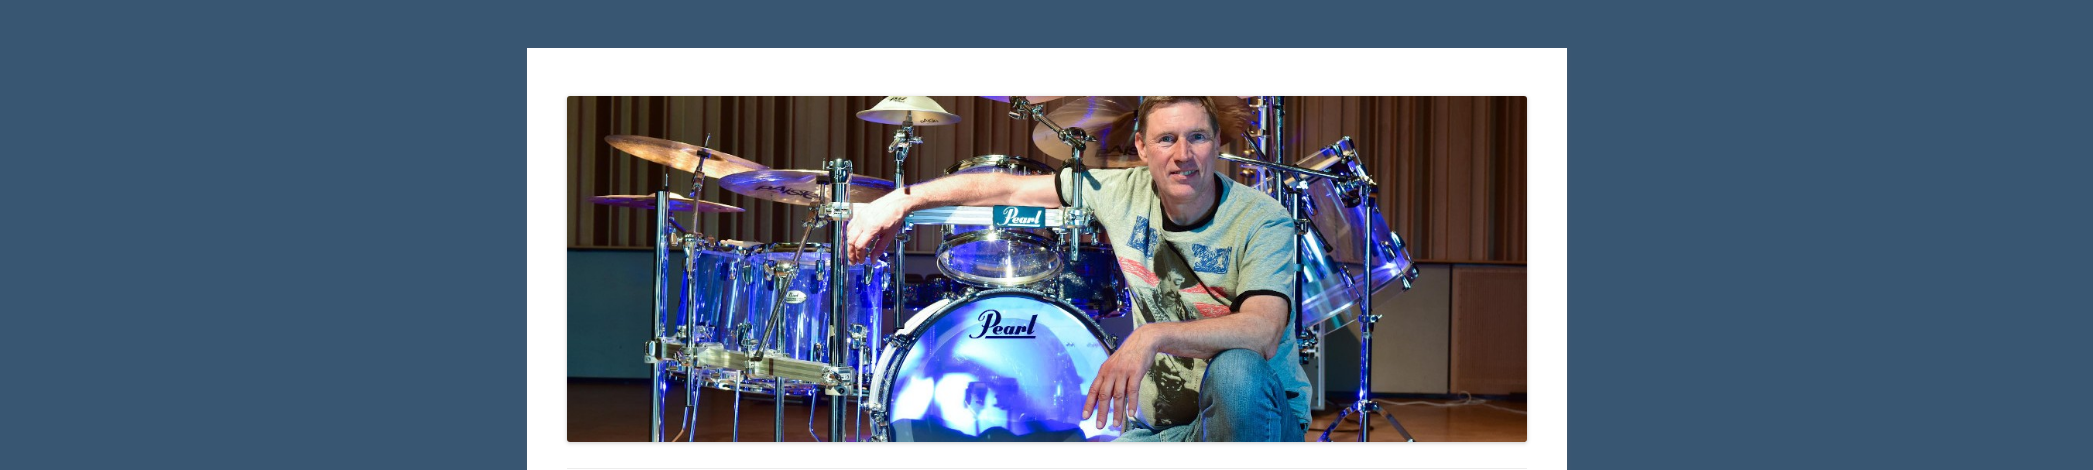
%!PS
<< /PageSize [2093 470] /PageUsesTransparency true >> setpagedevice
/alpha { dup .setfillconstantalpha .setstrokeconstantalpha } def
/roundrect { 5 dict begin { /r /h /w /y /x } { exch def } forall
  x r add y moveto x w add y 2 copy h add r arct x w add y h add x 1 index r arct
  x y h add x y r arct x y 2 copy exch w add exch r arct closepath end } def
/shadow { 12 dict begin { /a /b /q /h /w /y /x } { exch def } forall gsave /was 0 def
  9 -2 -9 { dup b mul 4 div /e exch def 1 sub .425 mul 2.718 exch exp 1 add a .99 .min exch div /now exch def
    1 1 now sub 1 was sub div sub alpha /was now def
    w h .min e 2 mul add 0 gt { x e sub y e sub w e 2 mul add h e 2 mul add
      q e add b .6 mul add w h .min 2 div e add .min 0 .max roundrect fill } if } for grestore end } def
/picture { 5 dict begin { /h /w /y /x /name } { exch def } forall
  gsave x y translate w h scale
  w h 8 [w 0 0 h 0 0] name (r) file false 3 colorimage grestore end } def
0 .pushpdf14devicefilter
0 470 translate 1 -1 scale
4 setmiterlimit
0.22 0.337 0.447 setrgbcolor
0 0 2093 470 rectfill
0.392 setgray
527 50 1040 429 0 3 0.3 shadow
1 setgray
527 48 1040 422 rectfill
0 setgray
567 97 960 346 3 2 0.2 shadow
(img1.rgb) 567 96 960 346 picture
0.929 setgray
567 468 960 1 rectfill
.poppdf14devicefilter showpage
